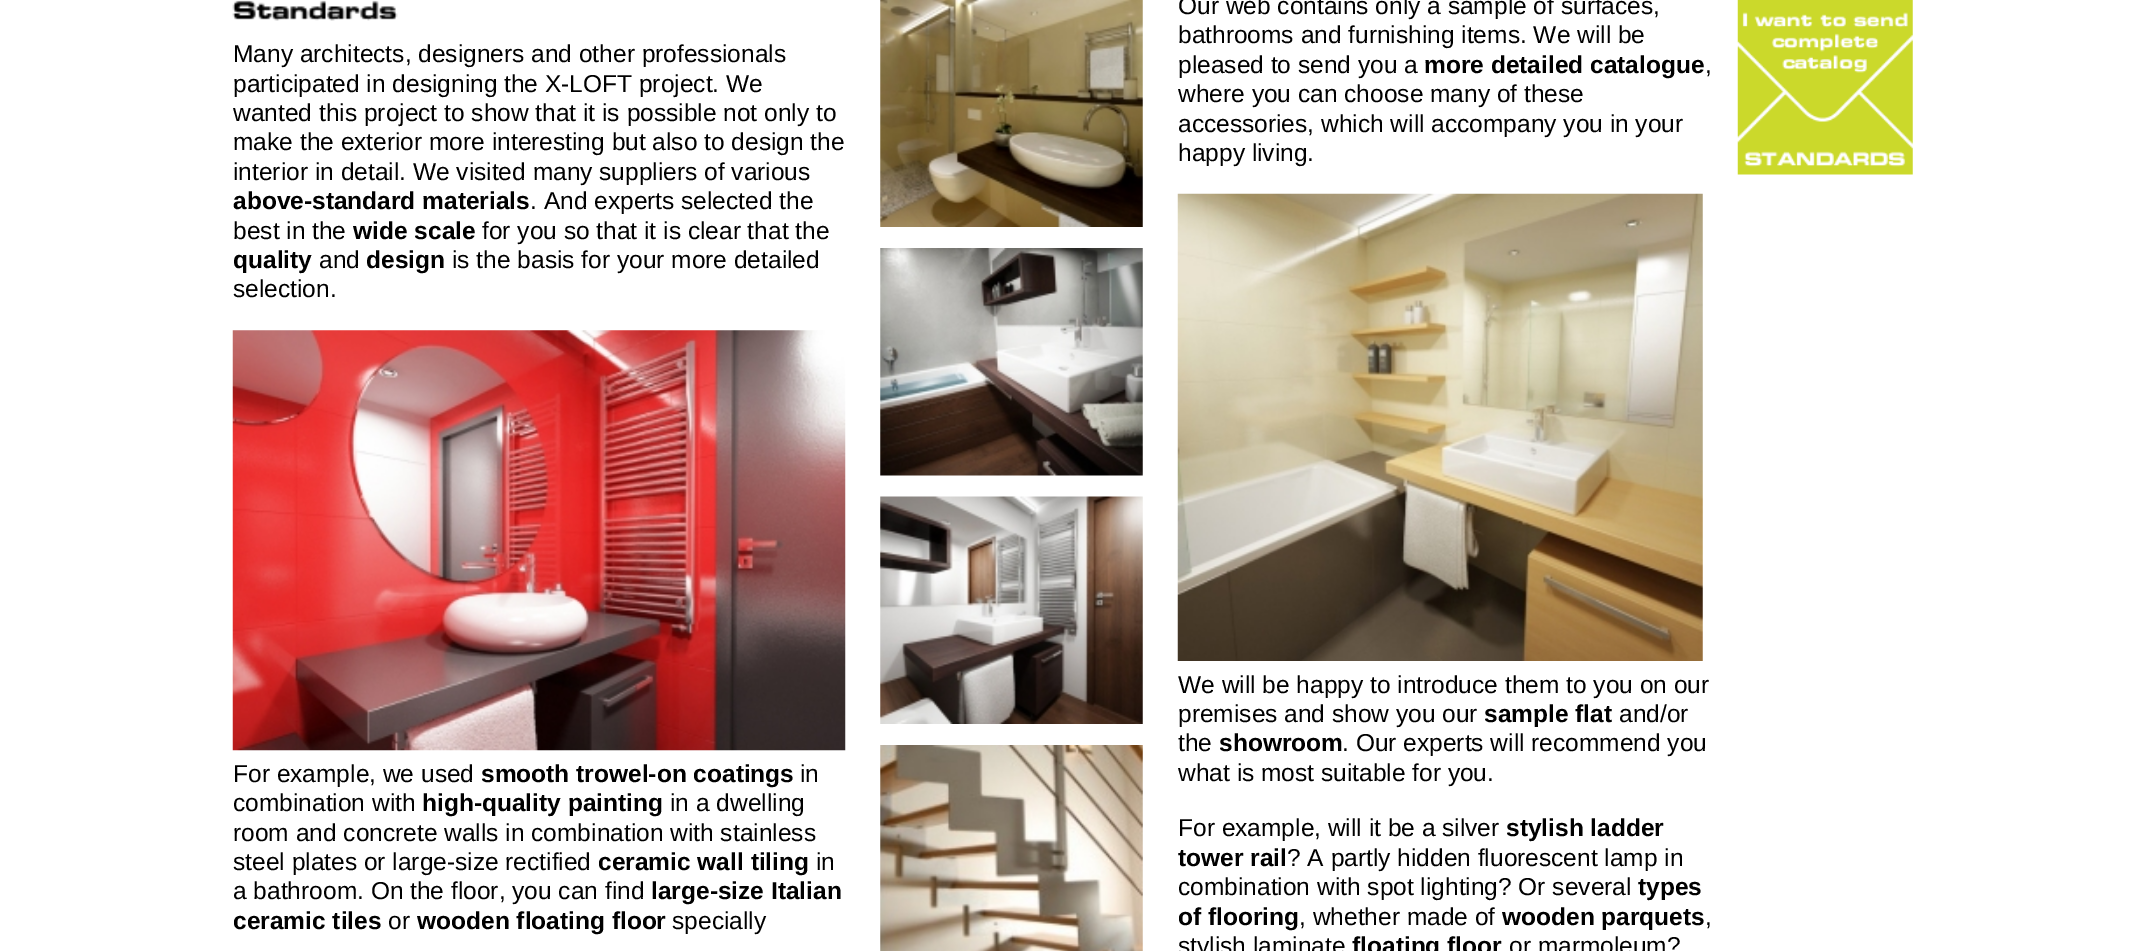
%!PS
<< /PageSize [2144 951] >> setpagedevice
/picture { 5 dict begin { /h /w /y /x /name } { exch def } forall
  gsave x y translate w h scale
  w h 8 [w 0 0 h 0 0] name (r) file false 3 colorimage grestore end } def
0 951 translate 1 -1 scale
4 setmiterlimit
1 setgray
0 0 2144 951 rectfill
(img1.rgb) 232 0 166 21 picture
/LiberationSans-Regular [24.5 0 0 -24.5 0 0] selectfont
0 setgray
233 62 moveto (Many architects, designers and other professionals) show
233 92 moveto (participated in designing the X-LOFT project. We) show
233 121 moveto (wanted this project to show that it is possible not only to) show
233 150 moveto (make the exterior more interesting but also to design the) show
233 180 moveto (interior in detail. We visited many suppliers of various) show
/LiberationSans-Bold [24.5 0 0 -24.5 0 0] selectfont
233 209 moveto (above-standard materials) show
/LiberationSans-Regular [24.5 0 0 -24.5 0 0] selectfont
530 209 moveto (. And experts selected the) show
233 239 moveto (best in the) show
/LiberationSans-Bold [24.5 0 0 -24.5 0 0] selectfont
353 239 moveto (wide scale) show
/LiberationSans-Regular [24.5 0 0 -24.5 0 0] selectfont
482 239 moveto (for you so that it is clear that the) show
/LiberationSans-Bold [24.5 0 0 -24.5 0 0] selectfont
233 268 moveto (quality) show
/LiberationSans-Regular [24.5 0 0 -24.5 0 0] selectfont
319 268 moveto (and) show
/LiberationSans-Bold [24.5 0 0 -24.5 0 0] selectfont
366 268 moveto (design) show
/LiberationSans-Regular [24.5 0 0 -24.5 0 0] selectfont
452 268 moveto (is the basis for your more detailed) show
233 297 moveto (selection.) show
(img2.rgb) 232 330 614 421 picture
233 782 moveto (For example, we used) show
/LiberationSans-Bold [24.5 0 0 -24.5 0 0] selectfont
481 782 moveto (smooth trowel-on coatings) show
/LiberationSans-Regular [24.5 0 0 -24.5 0 0] selectfont
800 782 moveto (in) show
233 811 moveto (combination with) show
/LiberationSans-Bold [24.5 0 0 -24.5 0 0] selectfont
422 811 moveto (high-quality painting) show
/LiberationSans-Regular [24.5 0 0 -24.5 0 0] selectfont
670 811 moveto (in a dwelling) show
233 841 moveto (room and concrete walls in combination with stainless) show
233 870 moveto (steel plates or large-size rectified) show
/LiberationSans-Bold [24.5 0 0 -24.5 0 0] selectfont
598 870 moveto (ceramic wall tiling) show
/LiberationSans-Regular [24.5 0 0 -24.5 0 0] selectfont
816 870 moveto (in) show
233 899 moveto (a bathroom. On the floor, you can find) show
/LiberationSans-Bold [24.5 0 0 -24.5 0 0] selectfont
651 899 moveto (large-size Italian) show
233 929 moveto (ceramic tiles) show
/LiberationSans-Regular [24.5 0 0 -24.5 0 0] selectfont
388 929 moveto (or) show
/LiberationSans-Bold [24.5 0 0 -24.5 0 0] selectfont
417 929 moveto (wooden floating floor) show
/LiberationSans-Regular [24.5 0 0 -24.5 0 0] selectfont
672 929 moveto (specially) show
(img3.rgb) 880 0 263 227 picture
(img4.rgb) 880 248 263 228 picture
(img5.rgb) 880 496 263 228 picture
(img6.rgb) 880 745 263 206 picture
1178 14 moveto (Our web contains only a sample of surfaces,) show
1178 43 moveto (bathrooms and furnishing items. We will be) show
1178 73 moveto (pleased to send you a) show
/LiberationSans-Bold [24.5 0 0 -24.5 0 0] selectfont
1424 73 moveto (more detailed catalogue) show
/LiberationSans-Regular [24.5 0 0 -24.5 0 0] selectfont
1705 73 moveto (,) show
1178 102 moveto (where you can choose many of these) show
1178 132 moveto (accessories, which will accompany you in your) show
1178 161 moveto (happy living.) show
(img7.rgb) 1177 193 526 468 picture
1178 693 moveto (We will be happy to introduce them to you on our) show
1178 722 moveto (premises and show you our) show
/LiberationSans-Bold [24.5 0 0 -24.5 0 0] selectfont
1484 722 moveto (sample flat) show
/LiberationSans-Regular [24.5 0 0 -24.5 0 0] selectfont
1619 722 moveto (and/or) show
1178 751 moveto (the) show
/LiberationSans-Bold [24.5 0 0 -24.5 0 0] selectfont
1219 751 moveto (showroom) show
/LiberationSans-Regular [24.5 0 0 -24.5 0 0] selectfont
1342 751 moveto (. Our experts will recommend you) show
1178 781 moveto (what is most suitable for you.) show
1178 836 moveto (For example, will it be a silver) show
/LiberationSans-Bold [24.5 0 0 -24.5 0 0] selectfont
1506 836 moveto (stylish ladder) show
1178 866 moveto (tower rail) show
/LiberationSans-Regular [24.5 0 0 -24.5 0 0] selectfont
1287 866 moveto (? A partly hidden fluorescent lamp in) show
1178 895 moveto (combination with spot lighting? Or several) show
/LiberationSans-Bold [24.5 0 0 -24.5 0 0] selectfont
1638 895 moveto (types) show
1178 925 moveto (of flooring) show
/LiberationSans-Regular [24.5 0 0 -24.5 0 0] selectfont
1299 925 moveto (, whether made of) show
/LiberationSans-Bold [24.5 0 0 -24.5 0 0] selectfont
1502 925 moveto (wooden parquets) show
/LiberationSans-Regular [24.5 0 0 -24.5 0 0] selectfont
1705 925 moveto (,) show
1178 954 moveto (stylish laminate) show
/LiberationSans-Bold [24.5 0 0 -24.5 0 0] selectfont
1352 954 moveto (floating floor) show
/LiberationSans-Regular [24.5 0 0 -24.5 0 0] selectfont
1509 954 moveto (or marmoleum?) show
(img8.rgb) 1737 0 176 175 picture
showpage
